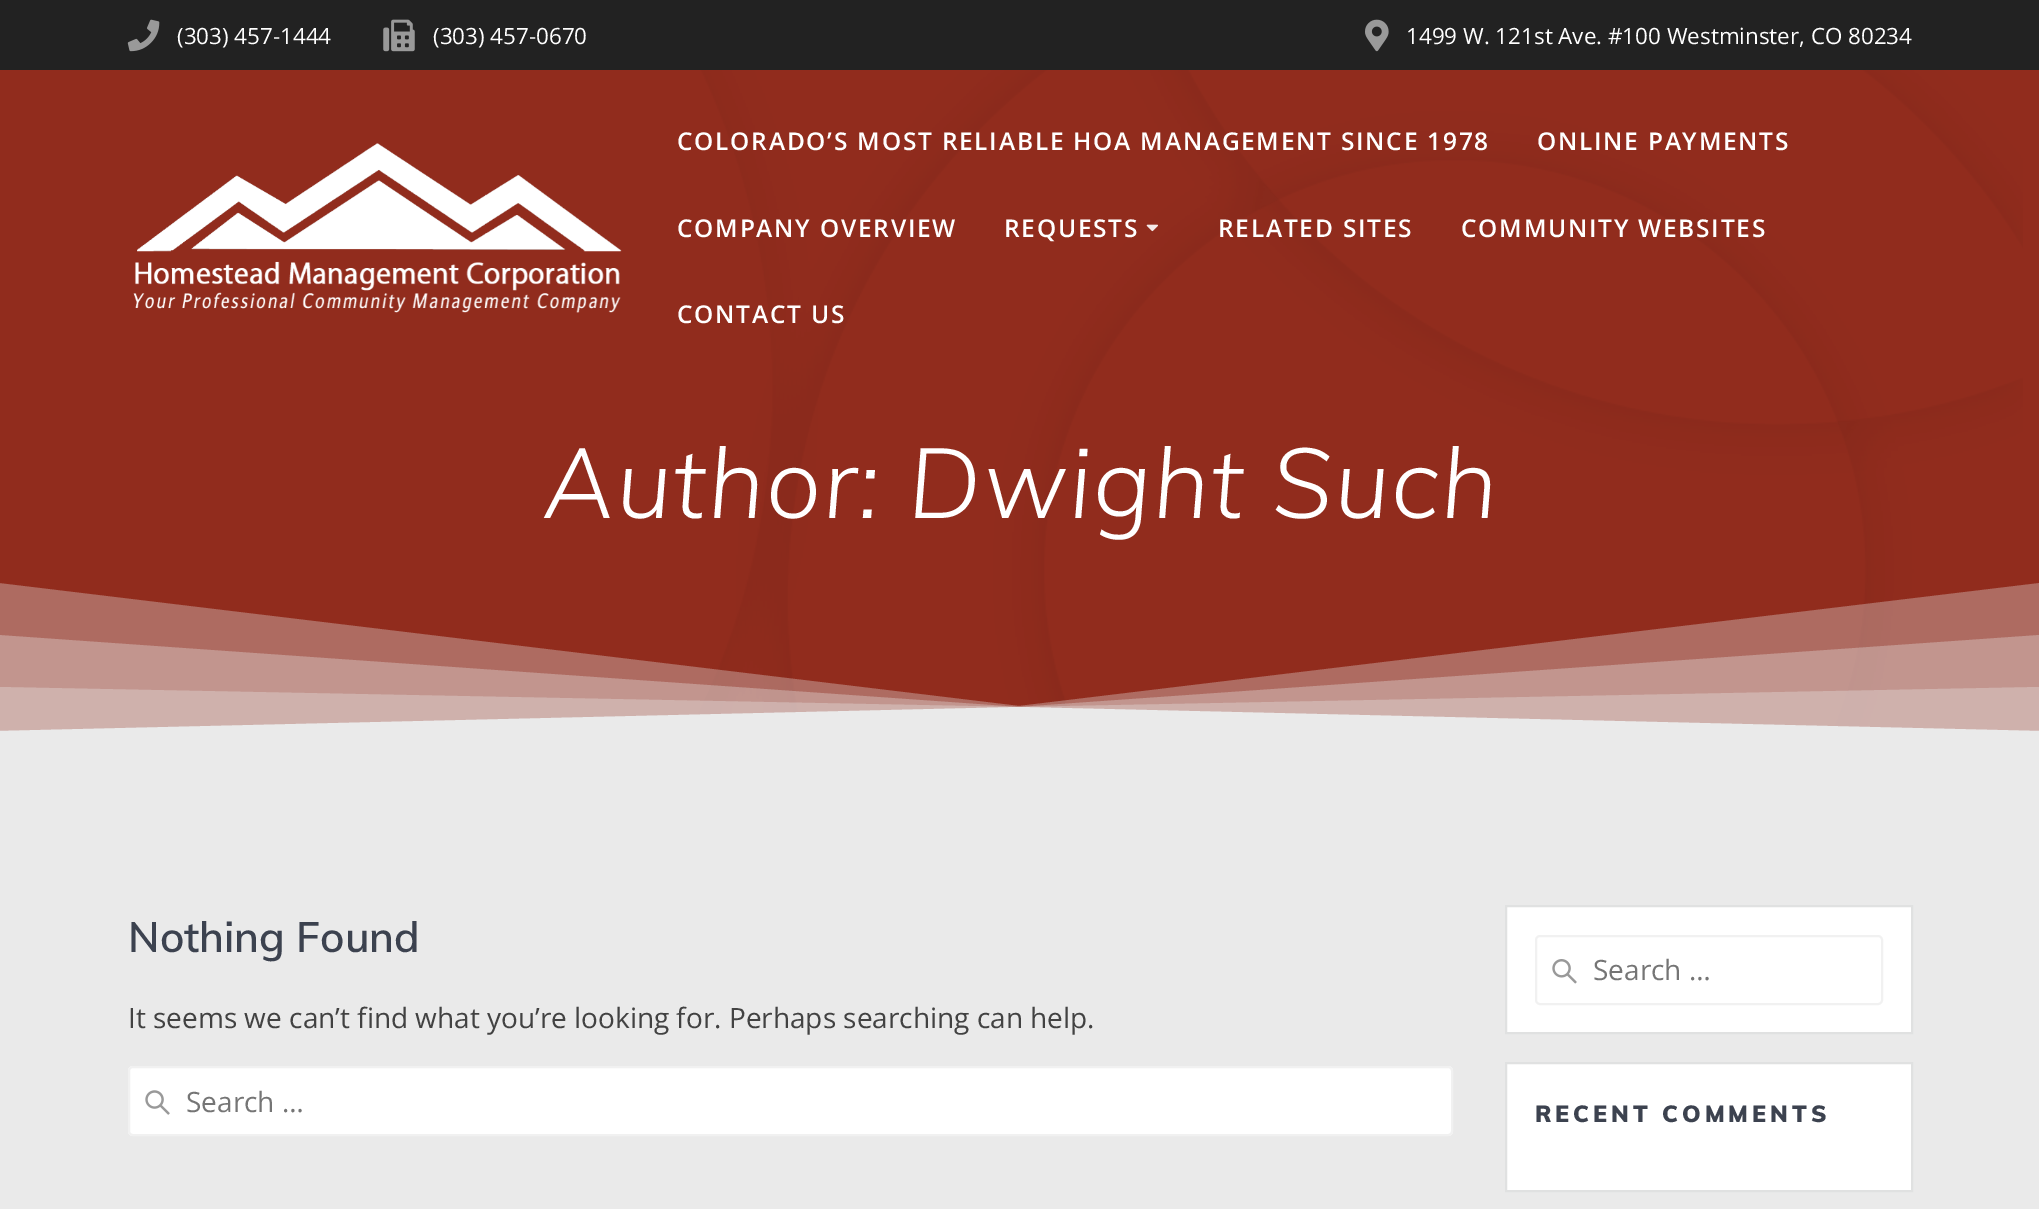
%!PS
<< /PageSize [2039 1209] /PageUsesTransparency true >> setpagedevice
/alpha { dup .setfillconstantalpha .setstrokeconstantalpha } def
/roundrect { 5 dict begin { /r /h /w /y /x } { exch def } forall
  x r add y moveto x w add y 2 copy h add r arct x w add y h add x 1 index r arct
  x y h add x y r arct x y 2 copy exch w add exch r arct closepath end } def
/picture { 5 dict begin { /h /w /y /x /name } { exch def } forall
  gsave x y translate w h scale
  w h 8 [w 0 0 h 0 0] name (r) file false 3 colorimage grestore end } def
0 .pushpdf14devicefilter
0 1209 translate 1 -1 scale
4 setmiterlimit
0.918 setgray
0 0 2039 1209 rectfill
0.133 setgray
0 0 2039 70 rectfill
(img1.rgb) 127 19 33 33 picture
/OpenSans-Regular [22.4 0 0 -22.4 0 0] selectfont
1 setgray
177 44 moveto (\(303\) 457-1444) show
(img2.rgb) 383 19 32 33 picture
433 44 moveto (\(303\) 457-0670) show
(img3.rgb) 1365 19 24 33 picture
1406 44 moveto (1499 W. 121st Ave. #100 Westminster, CO 80234) show
0.569 0.173 0.114 setrgbcolor
0 70 2039 661 rectfill
(img4.rgb) 133 143 489 170 picture
(img6.rgb) 698 70 1325 657 picture
/OpenSans-SemiBold [24.5 0 0 -24.5 0 0] selectfont
1 setgray
677 150 moveto 1.75 0 (COLORADO’S MOST RELIABLE HOA MANAGEMENT SINCE 1978) ashow
1537 150 moveto 1.75 0 (ONLINE PAYMENTS) ashow
677 237 moveto 1.75 0 (COMPANY OVERVIEW) ashow
1004 237 moveto 1.75 0 (REQUESTS) ashow
(img5.rgb) 1146 224 12 8 picture
1218 237 moveto 1.75 0 (RELATED SITES) ashow
1461 237 moveto 1.75 0 (COMMUNITY WEBSITES) ashow
677 323 moveto 1.75 0 (CONTACT US) ashow
/Muli-LightItalic [98 0 0 -98 0 0] selectfont
543 518 moveto 1.6 0 (Author: Dwight Such) ashow
gsave
0 576 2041 164 rectclip
0.33 alpha
0.918 setgray
newpath 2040 741 moveto 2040 583 lineto 1019 706 lineto -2 583 lineto -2 741 lineto closepath fill
newpath 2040 741 moveto 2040 635 lineto 1019 707 lineto -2 635 lineto -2 741 lineto closepath fill
newpath 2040 741 moveto 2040 687 lineto 1019 707 lineto -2 687 lineto -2 741 lineto closepath fill
1 alpha
newpath 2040 741 moveto 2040 731 lineto 1019 707 lineto -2 731 lineto -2 741 lineto closepath fill
grestore
/Muli-SemiBold [42 0 0 -42 0 0] selectfont
0.235 0.259 0.31 setrgbcolor
128 952 moveto (Nothing Found) show
/OpenSans-Regular [28 0 0 -28 0 0] selectfont
0.259 setgray
128 1028 moveto (It seems we can’t find what you’re looking for. Perhaps searching can help.) show
1 setgray
128 1066 1325 70 5 roundrect fill
(img7.rgb) 145 1090 25 25 picture
0.945 setgray
2 setlinewidth
129 1067 1323 68 4 roundrect stroke
0.459 setgray
186 1112 moveto (Search …) show
1 setgray
newpath 1506 906 moveto 1912 906 lineto 1912 1033 lineto 1506 1033 lineto closepath gsave fill grestore
0.878 0.882 0.882 setrgbcolor
stroke
(img8.rgb) 1552 959 25 25 picture
0.945 setgray
1536 936 346 68 4 roundrect stroke
0.459 setgray
1593 980 moveto (Search …) show
1 setgray
newpath 1506 1063 moveto 1912 1063 lineto 1912 1191 lineto 1506 1191 lineto closepath gsave fill grestore
0.878 0.882 0.882 setrgbcolor
stroke
/Muli-Black [23.25 0 0 -23.25 0 0] selectfont
0.235 0.259 0.31 setrgbcolor
1535 1122 moveto 3.9 0 (RECENT COMMENTS) ashow
.poppdf14devicefilter showpage
